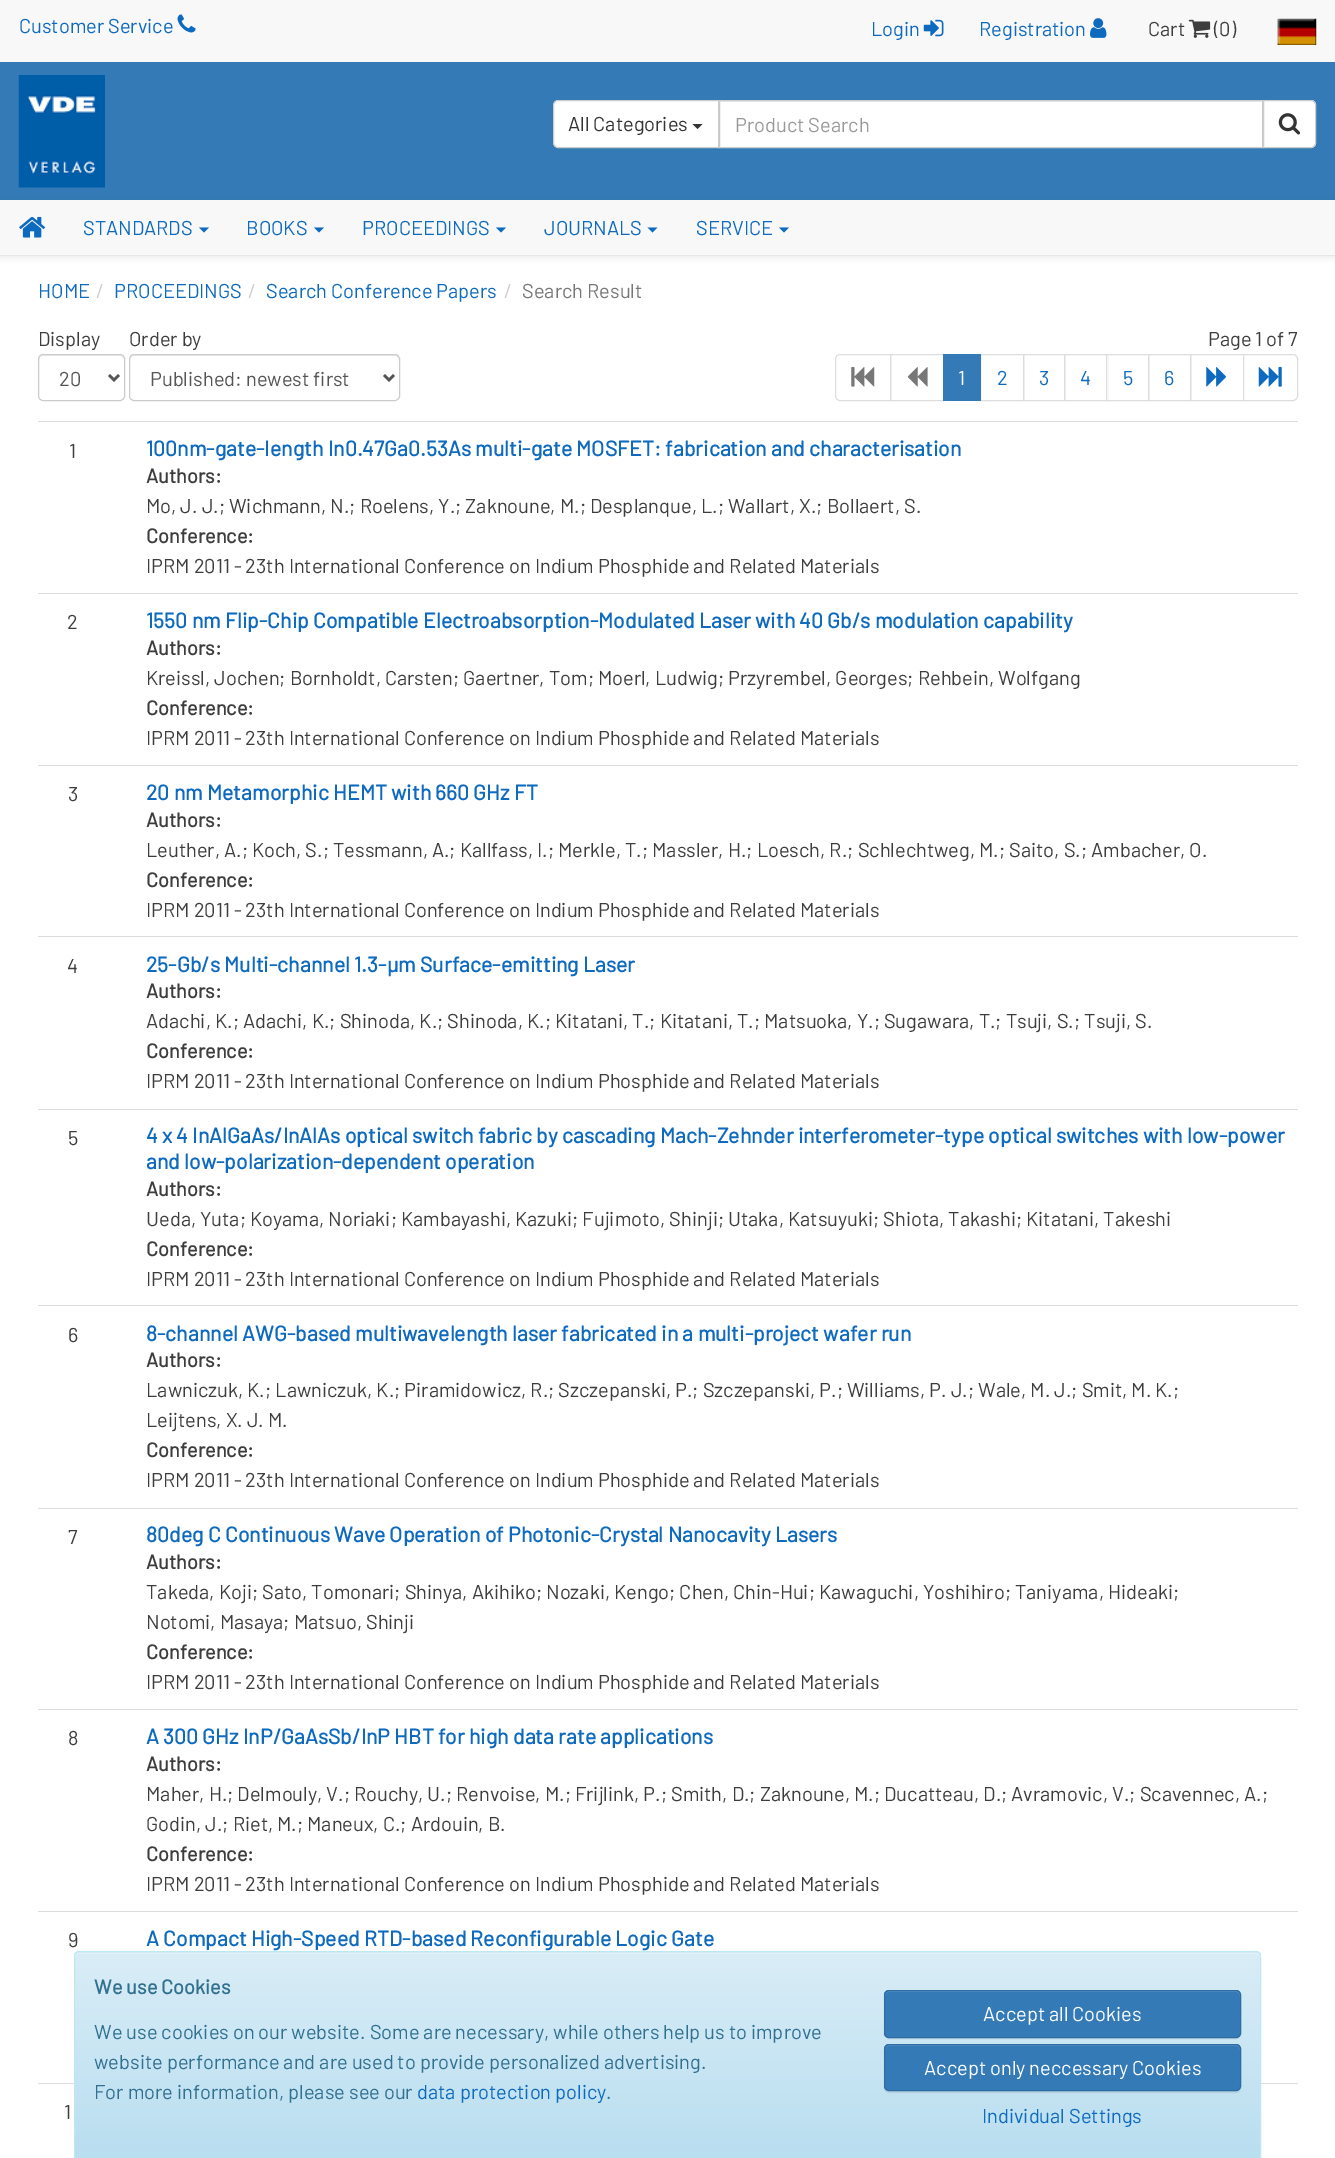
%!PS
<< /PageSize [1335 2158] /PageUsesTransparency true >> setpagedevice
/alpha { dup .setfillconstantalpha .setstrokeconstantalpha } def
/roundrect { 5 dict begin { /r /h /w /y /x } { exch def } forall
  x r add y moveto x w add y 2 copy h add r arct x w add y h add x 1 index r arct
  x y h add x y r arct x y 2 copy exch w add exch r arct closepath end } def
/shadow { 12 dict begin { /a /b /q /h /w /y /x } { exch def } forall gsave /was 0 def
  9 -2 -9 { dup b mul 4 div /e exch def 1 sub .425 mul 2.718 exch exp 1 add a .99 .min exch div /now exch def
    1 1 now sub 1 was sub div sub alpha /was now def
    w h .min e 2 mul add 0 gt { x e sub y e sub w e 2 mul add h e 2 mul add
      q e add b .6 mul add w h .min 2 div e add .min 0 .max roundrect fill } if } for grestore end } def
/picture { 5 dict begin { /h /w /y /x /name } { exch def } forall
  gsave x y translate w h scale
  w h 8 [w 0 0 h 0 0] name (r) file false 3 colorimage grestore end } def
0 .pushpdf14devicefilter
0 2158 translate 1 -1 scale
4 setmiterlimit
1 setgray
0 0 1335 2158 rectfill
0.973 setgray
0 0 1335 62 rectfill
/Barlow-Regular [20 0 0 -20 0 0] selectfont
0.051 0.416 0.745 setrgbcolor
19 33 moveto (Customer Service) show
(img1.rgb) 177 14 19 19 picture
871 36 moveto (Login) show
(img2.rgb) 923 19 21 18 picture
979 36 moveto (Registration) show
(img3.rgb) 1090 18 17 20 picture
0.239 setgray
1148 36 moveto (Cart) show
(img4.rgb) 1188 19 23 19 picture
1214 36 moveto (\(0\)) show
(img5.rgb) 1277 18 40 27 picture
0.2 0.478 0.718 setrgbcolor
0 62 1335 138 rectfill
(img6.rgb) 18 75 87 113 picture
1 setgray
554 100 762 48 5 roundrect fill
0.925 setgray
720 101 541 1 rectfill
0.8 setgray
719.5 100.5 543 47 rectstroke
0 setgray
553 101 166 48 5 0.5 0.07 shadow
1 setgray
newpath 558 100.5 moveto 718.5 100.5 lineto 718.5 147.5 lineto 558 147.5 lineto 555.5 147.5 553.5 145.5 553.5 143 curveto 553.5 105 lineto 553.5 102.5 555.5 100.5 558 100.5 curveto closepath gsave fill grestore
0.8 setgray
stroke
0.2 setgray
568 131 moveto (All Categories) show
newpath 692.5 124 moveto 702.5 124 lineto 697.5 129 lineto closepath fill
0.6 setgray
735 132 moveto (Product Search) show
0 setgray
1263 101 53 48 5 0.5 0.07 shadow
1 setgray
newpath 1263.5 100.5 moveto 1311 100.5 lineto 1313.5 100.5 1315.5 102.5 1315.5 105 curveto 1315.5 143 lineto 1315.5 145.5 1313.5 147.5 1311 147.5 curveto 1263.5 147.5 lineto closepath gsave fill grestore
0.8 setgray
stroke
(img7.rgb) 1278 113 23 22 picture
0 setgray
0 201 1335 57 0 3 0.07 shadow
0.906 setgray
0 255 1335 1 rectfill
0.973 setgray
0 200 1335 55 rectfill
(img8.rgb) 19 216 26 22 picture
0.051 0.416 0.745 setrgbcolor
83 235 moveto (STANDARDS) show
newpath 199 227.5 moveto 209 227.5 lineto 204 232.5 lineto closepath fill
246 235 moveto (BOOKS) show
newpath 314 227.5 moveto 324 227.5 lineto 319 232.5 lineto closepath fill
362 235 moveto (PROCEEDINGS) show
newpath 496 227.5 moveto 506 227.5 lineto 501 232.5 lineto closepath fill
544 235 moveto (JOURNALS) show
newpath 647.5 227.5 moveto 657.5 227.5 lineto 652.5 232.5 lineto closepath fill
696 235 moveto (SERVICE) show
newpath 779 227.5 moveto 789 227.5 lineto 784 232.5 lineto closepath fill
38 298 moveto (HOME) show
0.8 setgray
96 298 moveto (/) show
0.051 0.416 0.745 setrgbcolor
114 298 moveto (PROCEEDINGS) show
0.8 setgray
248 298 moveto (/) show
0.051 0.416 0.745 setrgbcolor
266 298 moveto (Search Conference Papers) show
0.8 setgray
504 298 moveto (/) show
0.467 setgray
522 298 moveto (Search Result) show
0.239 setgray
38 346 moveto (Display) show
0.925 setgray
newpath 42 356 moveto 120 356 lineto 122 356 124 358 124 360 curveto 124 352 112 355 107 355 curveto 56 355 lineto 51 355 39 352 39 360 curveto 39 358 40 356 42 356 curveto closepath fill
0.8 setgray
38.5 354.5 86 46 4.5 roundrect stroke
0.333 setgray
2.5 setlinewidth
newpath 109 375 moveto 114 380 lineto 119 375 lineto stroke
59 386 moveto (20) show
0.239 setgray
129 346 moveto (Order by) show
0.925 setgray
newpath 134 356 moveto 395 356 lineto 397 356 399 358 399 360 curveto 399 357 398 355 395 355 curveto 134 355 lineto 131 355 130 357 130 360 curveto 130 358 132 356 134 356 curveto closepath fill
0.8 setgray
1 setlinewidth
129.5 354.5 270 46 4.5 roundrect stroke
0.333 setgray
2.5 setlinewidth
newpath 384 375 moveto 389 380 lineto 394 375 lineto stroke
150 386 moveto (Published: newest first) show
0.239 setgray
1208 346 moveto (Page 1 of 7) show
0.867 setgray
1 setlinewidth
newpath 840 354.5 moveto 890.5 354.5 lineto 890.5 400.5 lineto 840 400.5 lineto 837.5 400.5 835.5 398.5 835.5 396 curveto 835.5 359 lineto 835.5 356.5 837.5 354.5 840 354.5 curveto closepath stroke
(img9.rgb) 851 366 24 21 picture
890.5 354.5 53 46 rectstroke
(img10.rgb) 907 367 21 20 picture
980.5 354.5 43 46 rectstroke
0.2 0.478 0.718 setrgbcolor
943 354 38 47 rectfill
1 setgray
958 385 moveto (1) show
0.051 0.416 0.745 setrgbcolor
997 385 moveto (2) show
0.867 setgray
1023.5 354.5 41 46 rectstroke
0.051 0.416 0.745 setrgbcolor
1039 385 moveto (3) show
0.867 setgray
1064.5 354.5 43 46 rectstroke
0.051 0.416 0.745 setrgbcolor
1080 385 moveto (4) show
1 setgray
1107 355 1 45 rectfill
0.867 setgray
1106.5 354.5 42 46 rectstroke
0.051 0.416 0.745 setrgbcolor
1123 385 moveto (5) show
0.867 setgray
1148.5 354.5 42 46 rectstroke
0.051 0.416 0.745 setrgbcolor
1164 385 moveto (6) show
0.867 setgray
1190.5 354.5 53 46 rectstroke
(img11.rgb) 1206 367 20 20 picture
1 setgray
newpath 1243.5 354.5 moveto 1293 354.5 lineto 1295.5 354.5 1297.5 356.5 1297.5 359 curveto 1297.5 396 lineto 1297.5 398.5 1295.5 400.5 1293 400.5 curveto 1243.5 400.5 lineto closepath gsave fill grestore
0.867 setgray
stroke
(img12.rgb) 1258 366 24 21 picture
38 421 1260 1 rectfill
0.239 setgray
69 458 moveto (1) show
/Barlow-Bold [21.25 0 0 -21.25 0 0] selectfont
0.051 0.416 0.745 setrgbcolor
146 456 moveto (100nm-gate-Iength In0.47Ga0.53As multi-gate MOSFET: fabrication and characterisation) show
/Barlow-Bold [20 0 0 -20 0 0] selectfont
0.239 setgray
146 483 moveto (Authors:) show
/Barlow-Regular [20 0 0 -20 0 0] selectfont
146 513 moveto (Mo, J. J.; Wichmann, N.; Roelens, Y.; Zaknoune, M.; Desplanque, L.; Wallart, X.; Bollaert, S.) show
/Barlow-Bold [20 0 0 -20 0 0] selectfont
146 543 moveto (Conference:) show
/Barlow-Regular [20 0 0 -20 0 0] selectfont
146 573 moveto (IPRM 2011 - 23th International Conference on Indium Phosphide and Related Materials) show
0.867 setgray
38 593 1260 1 rectfill
0.239 setgray
67 629 moveto (2) show
/Barlow-Bold [21.25 0 0 -21.25 0 0] selectfont
0.051 0.416 0.745 setrgbcolor
146 628 moveto (1550 nm Flip-Chip Compatible Electroabsorption-Modulated Laser with 40 Gb/s modulation capability) show
/Barlow-Bold [20 0 0 -20 0 0] selectfont
0.239 setgray
146 655 moveto (Authors:) show
/Barlow-Regular [20 0 0 -20 0 0] selectfont
146 685 moveto (Kreissl, Jochen; Bornholdt, Carsten; Gaertner, Tom; Moerl, Ludwig; Przyrembel, Georges; Rehbein, Wolfgang) show
/Barlow-Bold [20 0 0 -20 0 0] selectfont
146 715 moveto (Conference:) show
/Barlow-Regular [20 0 0 -20 0 0] selectfont
146 745 moveto (IPRM 2011 - 23th International Conference on Indium Phosphide and Related Materials) show
0.867 setgray
38 765 1260 1 rectfill
0.239 setgray
68 801 moveto (3) show
/Barlow-Bold [21.25 0 0 -21.25 0 0] selectfont
0.051 0.416 0.745 setrgbcolor
146 800 moveto (20 nm Metamorphic HEMT with 660 GHz FT) show
/Barlow-Bold [20 0 0 -20 0 0] selectfont
0.239 setgray
146 827 moveto (Authors:) show
/Barlow-Regular [20 0 0 -20 0 0] selectfont
146 857 moveto (Leuther, A.; Koch, S.; Tessmann, A.; Kallfass, I.; Merkle, T.; Massler, H.; Loesch, R.; Schlechtweg, M.; Saito, S.; Ambacher, O.) show
/Barlow-Bold [20 0 0 -20 0 0] selectfont
146 887 moveto (Conference:) show
/Barlow-Regular [20 0 0 -20 0 0] selectfont
146 917 moveto (IPRM 2011 - 23th International Conference on Indium Phosphide and Related Materials) show
0.867 setgray
38 936 1260 1 rectfill
0.239 setgray
67 973 moveto (4) show
/Barlow-Bold [21.25 0 0 -21.25 0 0] selectfont
0.051 0.416 0.745 setrgbcolor
146 972 moveto (25-Gb/s Multi-channel 1.3-µm Surface-emitting Laser) show
/Barlow-Bold [20 0 0 -20 0 0] selectfont
0.239 setgray
146 998 moveto (Authors:) show
/Barlow-Regular [20 0 0 -20 0 0] selectfont
146 1028 moveto (Adachi, K.; Adachi, K.; Shinoda, K.; Shinoda, K.; Kitatani, T.; Kitatani, T.; Matsuoka, Y.; Sugawara, T.; Tsuji, S.; Tsuji, S.) show
/Barlow-Bold [20 0 0 -20 0 0] selectfont
146 1058 moveto (Conference:) show
/Barlow-Regular [20 0 0 -20 0 0] selectfont
146 1088 moveto (IPRM 2011 - 23th International Conference on Indium Phosphide and Related Materials) show
0.867 setgray
38 1109 1260 1 rectfill
0.239 setgray
68 1145 moveto (5) show
/Barlow-Bold [21.25 0 0 -21.25 0 0] selectfont
0.051 0.416 0.745 setrgbcolor
146 1143 moveto (4 x 4 InAlGaAs/InAlAs optical switch fabric by cascading Mach-Zehnder interferometer-type optical switches with low-power) show
146 1169 moveto (and low-polarization-dependent operation) show
/Barlow-Bold [20 0 0 -20 0 0] selectfont
0.239 setgray
146 1196 moveto (Authors:) show
/Barlow-Regular [20 0 0 -20 0 0] selectfont
146 1226 moveto (Ueda, Yuta; Koyama, Noriaki; Kambayashi, Kazuki; Fujimoto, Shinji; Utaka, Katsuyuki; Shiota, Takashi; Kitatani, Takeshi) show
/Barlow-Bold [20 0 0 -20 0 0] selectfont
146 1256 moveto (Conference:) show
/Barlow-Regular [20 0 0 -20 0 0] selectfont
146 1286 moveto (IPRM 2011 - 23th International Conference on Indium Phosphide and Related Materials) show
0.867 setgray
38 1305 1260 1 rectfill
0.239 setgray
68 1342 moveto (6) show
/Barlow-Bold [21.25 0 0 -21.25 0 0] selectfont
0.051 0.416 0.745 setrgbcolor
146 1341 moveto (8-channel AWG-based multiwavelength laser fabricated in a multi-project wafer run) show
/Barlow-Bold [20 0 0 -20 0 0] selectfont
0.239 setgray
146 1367 moveto (Authors:) show
/Barlow-Regular [20 0 0 -20 0 0] selectfont
146 1397 moveto (Lawniczuk, K.; Lawniczuk, K.; Piramidowicz, R.; Szczepanski, P.; Szczepanski, P.; Williams, P. J.; Wale, M. J.; Smit, M. K.;) show
146 1427 moveto (Leijtens, X. J. M.) show
/Barlow-Bold [20 0 0 -20 0 0] selectfont
146 1457 moveto (Conference:) show
/Barlow-Regular [20 0 0 -20 0 0] selectfont
146 1487 moveto (IPRM 2011 - 23th International Conference on Indium Phosphide and Related Materials) show
0.867 setgray
38 1508 1260 1 rectfill
0.239 setgray
68 1544 moveto (7) show
/Barlow-Bold [21.25 0 0 -21.25 0 0] selectfont
0.051 0.416 0.745 setrgbcolor
146 1542 moveto (80deg C Continuous Wave Operation of Photonic-Crystal Nanocavity Lasers) show
/Barlow-Bold [20 0 0 -20 0 0] selectfont
0.239 setgray
146 1569 moveto (Authors:) show
/Barlow-Regular [20 0 0 -20 0 0] selectfont
146 1599 moveto (Takeda, Koji; Sato, Tomonari; Shinya, Akihiko; Nozaki, Kengo; Chen, Chin-Hui; Kawaguchi, Yoshihiro; Taniyama, Hideaki;) show
146 1629 moveto (Notomi, Masaya; Matsuo, Shinji) show
/Barlow-Bold [20 0 0 -20 0 0] selectfont
146 1659 moveto (Conference:) show
/Barlow-Regular [20 0 0 -20 0 0] selectfont
146 1689 moveto (IPRM 2011 - 23th International Conference on Indium Phosphide and Related Materials) show
0.867 setgray
38 1709 1260 1 rectfill
0.239 setgray
68 1745 moveto (8) show
/Barlow-Bold [21.25 0 0 -21.25 0 0] selectfont
0.051 0.416 0.745 setrgbcolor
146 1744 moveto (A 300 GHz InP/GaAsSb/InP HBT for high data rate applications) show
/Barlow-Bold [20 0 0 -20 0 0] selectfont
0.239 setgray
146 1771 moveto (Authors:) show
/Barlow-Regular [20 0 0 -20 0 0] selectfont
146 1801 moveto (Maher, H.; Delmouly, V.; Rouchy, U.; Renvoise, M.; Frijlink, P.; Smith, D.; Zaknoune, M.; Ducatteau, D.; Avramovic, V.; Scavennec, A.;) show
146 1831 moveto (Godin, J.; Riet, M.; Maneux, C.; Ardouin, B.) show
/Barlow-Bold [20 0 0 -20 0 0] selectfont
146 1861 moveto (Conference:) show
/Barlow-Regular [20 0 0 -20 0 0] selectfont
146 1891 moveto (IPRM 2011 - 23th International Conference on Indium Phosphide and Related Materials) show
0.867 setgray
38 1911 1260 1 rectfill
0.239 setgray
68 1947 moveto (9) show
/Barlow-Bold [21.25 0 0 -21.25 0 0] selectfont
0.051 0.416 0.745 setrgbcolor
146 1946 moveto (A Compact High-Speed RTD-based Reconfigurable Logic Gate) show
0.867 setgray
38 2083 1260 1 rectfill
/Barlow-Regular [20 0 0 -20 0 0] selectfont
0.239 setgray
64 2119 moveto (1) show
0.851 0.929 0.969 setrgbcolor
newpath 79 1951 moveto 1256 1951 lineto 1259 1951 1261 1953 1261 1956 curveto 1261 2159 lineto 74 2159 lineto 74 1956 lineto 74 1953 76 1951 79 1951 curveto closepath fill
gsave
newpath 79 1951 moveto 1256 1951 lineto 1259 1951 1261 1953 1261 1956 curveto 1261 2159 lineto 74 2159 lineto 74 1956 lineto 74 1953 76 1951 79 1951 curveto closepath clip newpath
gsave newpath 74 1953 moveto 1261 1953 lineto 1261 2158 lineto 74 2158 lineto closepath clip newpath
<< /ShadingType 2 /ColorSpace /DeviceRGB /Coords [668 1953 668 2158] /Extend [true true] /Function << /FunctionType 2 /Domain [0 1] /C0 [0.851 0.929 0.969] /C1 [0.725 0.871 0.941] /N 1 >> >> shfill grestore
grestore
0.89 0.949 0.976 setrgbcolor
newpath 79 1954 moveto 1256 1954 lineto 1258 1954 1260 1955 1260 1958 curveto 1260 1955 1259 1953 1256 1953 curveto 79 1953 lineto 76 1953 75 1955 75 1958 curveto 75 1955 77 1954 79 1954 curveto closepath fill
0.737 0.91 0.945 setrgbcolor
newpath 79 1951.5 moveto 1256 1951.5 lineto 1258.5 1951.5 1260.5 1953.5 1260.5 1956 curveto 1260.5 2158.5 lineto 74.5 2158.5 lineto 74.5 1956 lineto 74.5 1953.5 76.5 1951.5 79 1951.5 curveto closepath stroke
/Barlow-Bold [20 0 0 -20 0 0] selectfont
0.192 0.439 0.561 setrgbcolor
94 1994 moveto (We use Cookies) show
/Barlow-Regular [20 0 0 -20 0 0] selectfont
94 2039 moveto (We use cookies on our website. Some are necessary, while others help us to improve) show
94 2069 moveto (website performance and are used to provide personalized advertising.) show
94 2099 moveto (For more information, please see our) show
0.051 0.416 0.745 setrgbcolor
417 2099 moveto (data protection policy) show
0.192 0.439 0.561 setrgbcolor
606 2099 moveto (.) show
0 setgray
884 1991 357 48 5 0.5 0.07 shadow
0.2 0.478 0.718 setrgbcolor
884 1990 357 48 5 roundrect fill
0.322 0.557 0.761 setrgbcolor
newpath 889 1992 moveto 1236 1992 lineto 1238 1992 1240 1994 1240 1996 curveto 1240 1993 1239 1991 1236 1991 curveto 888 1991 lineto 886 1993 lineto 885 1996 lineto 885 1994 887 1992 889 1992 curveto closepath fill
0.18 0.427 0.643 setrgbcolor
884.5 1990.5 356 47 4.5 roundrect stroke
1 setgray
983 2021 moveto (Accept all Cookies) show
0 setgray
884 2045 357 48 5 0.5 0.07 shadow
0.2 0.478 0.718 setrgbcolor
884 2044 357 47 5 roundrect fill
0.322 0.557 0.761 setrgbcolor
newpath 889 2046 moveto 1236 2046 lineto 1238 2046 1240 2048 1240 2050 curveto 1240 2047 1239 2045 1236 2045 curveto 888 2045 lineto 886 2047 lineto 885 2050 lineto 885 2048 887 2046 889 2046 curveto closepath fill
0.18 0.427 0.643 setrgbcolor
884.5 2044.5 356 46 4.5 roundrect stroke
1 setgray
924 2075 moveto (Accept only neccessary Cookies) show
0.051 0.416 0.745 setrgbcolor
982 2123 moveto (Individual Settings) show
.poppdf14devicefilter showpage
